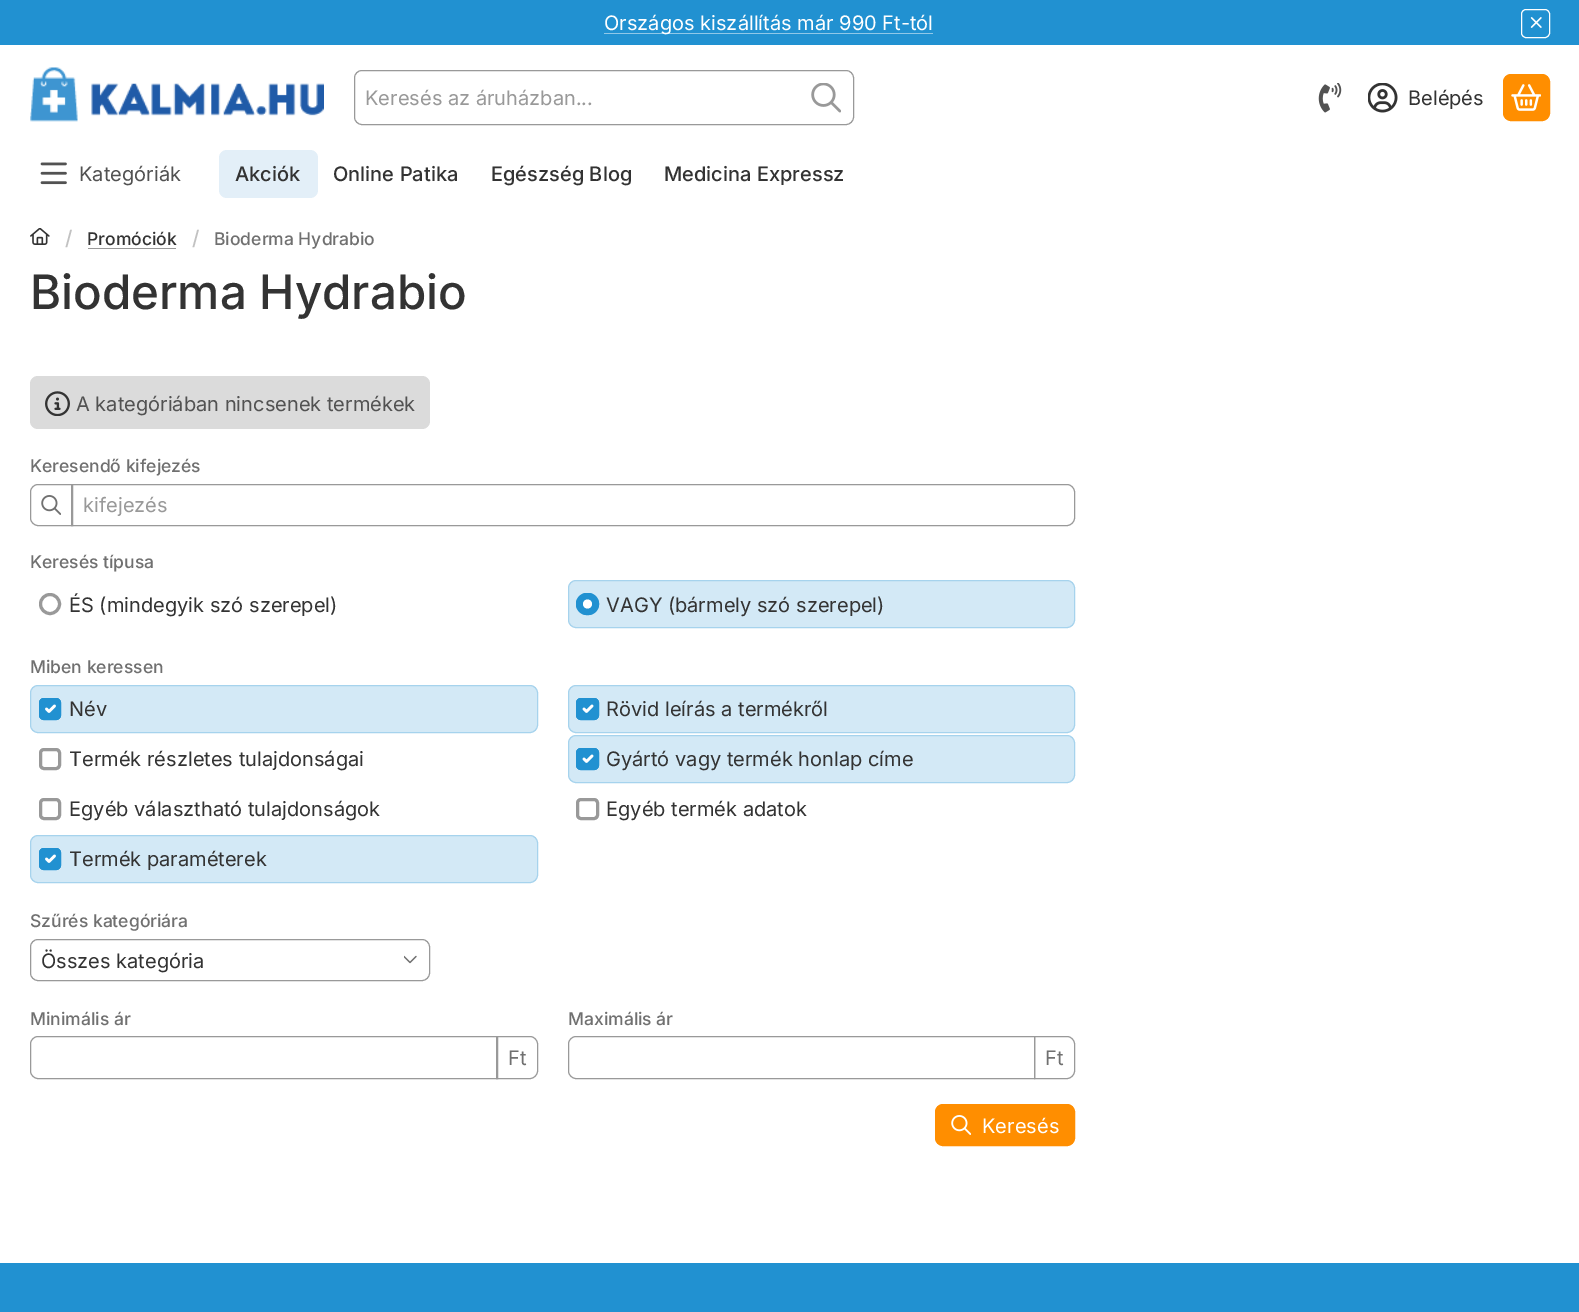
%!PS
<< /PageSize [1579 1312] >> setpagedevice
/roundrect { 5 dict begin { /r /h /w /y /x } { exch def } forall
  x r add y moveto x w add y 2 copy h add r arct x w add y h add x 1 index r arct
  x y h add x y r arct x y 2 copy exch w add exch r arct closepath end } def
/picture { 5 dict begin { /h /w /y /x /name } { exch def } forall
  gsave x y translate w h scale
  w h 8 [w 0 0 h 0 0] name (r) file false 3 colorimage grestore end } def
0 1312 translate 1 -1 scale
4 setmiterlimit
1 setgray
0 0 1579 1312 rectfill
0.129 0.569 0.82 setrgbcolor
0 0 1579 45 rectfill
0.565 0.784 0.91 setrgbcolor
604 33 329 1 rectfill
/Inter-Regular [20 0 0 -20 0 0] selectfont
1 setgray
604 30 moveto (Országos kiszállítás már 990 Ft-tól) show
1521.5 9.5 28 28 4.5 roundrect stroke
(img1.rgb) 1530 17 12 11 picture
(img2.rgb) 30 67 294 55 picture
0.6 setgray
354.5 70.5 499 54 7.5 roundrect stroke
365 105 moveto (Keresés az áruházban...) show
(img3.rgb) 811 83 30 30 picture
(img4.rgb) 1318 83 24 30 picture
(img5.rgb) 1368 83 30 30 picture
0.2 setgray
1408 105 moveto (Belépés) show
1 0.557 0 setrgbcolor
1503.5 74.5 46 46 7.5 roundrect gsave fill grestore
stroke
(img6.rgb) 1511 84 30 27 picture
(img7.rgb) 40 162 27 23 picture
0.322 setgray
79 181 moveto (Kategóriák) show
0.89 0.937 0.973 setrgbcolor
219 150 99 48 8 roundrect fill
/Inter-Medium [20 0 0 -20 0 0] selectfont
0.2 setgray
235 181 moveto (Akciók) show
333 181 moveto (Online Patika) show
491 181 moveto (Egészség Blog) show
664 181 moveto (Medicina Expressz) show
(img8.rgb) 30 228 20 17 picture
0.761 setgray
65 245 moveto (/) show
/Inter-Medium [17.5 0 0 -17.5 0 0] selectfont
0.2 setgray
87 245 moveto (Promóciók) show
0.6 setgray
88 248 88 1 rectfill
/Inter-Medium [20 0 0 -20 0 0] selectfont
0.761 setgray
192 245 moveto (/) show
/Inter-Medium [17.5 0 0 -17.5 0 0] selectfont
0.439 setgray
214 245 moveto (Bioderma Hydrabio) show
/Inter-Medium [47.5 0 0 -47.5 0 0] selectfont
0.2 setgray
30 309 moveto (Bioderma Hydrabio) show
0.859 setgray
30 376 400 53 8 roundrect fill
(img9.rgb) 45 391 25 25 picture
/Inter-Regular [20 0 0 -20 0 0] selectfont
0.322 setgray
76 411 moveto (A kategóriában nincsenek termékek) show
/Inter-Medium [17.5 0 0 -17.5 0 0] selectfont
0.439 setgray
30 472 moveto (Keresendő kifejezés) show
0.6 setgray
newpath 38 484.5 moveto 72.5 484.5 lineto 72.5 525.5 lineto 38 525.5 lineto 34 525.5 30.5 522 30.5 518 curveto 30.5 492 lineto 30.5 488 34 484.5 38 484.5 curveto closepath stroke
(img10.rgb) 41 495 20 20 picture
newpath 71.5 484.5 moveto 1067 484.5 lineto 1071 484.5 1074.5 488 1074.5 492 curveto 1074.5 518 lineto 1074.5 522 1071 525.5 1067 525.5 curveto 71.5 525.5 lineto closepath stroke
/Inter-Regular [20 0 0 -20 0 0] selectfont
83 512 moveto (kifejezés) show
/Inter-Medium [17.5 0 0 -17.5 0 0] selectfont
0.439 setgray
30 568 moveto (Keresés típusa) show
0.6 setgray
3 setlinewidth
newpath 50 604 9.5 0 360 arc closepath stroke
/Inter-Regular [20 0 0 -20 0 0] selectfont
0.2 setgray
69 612 moveto (ÉS \(mindegyik szó szerepel\)) show
0.827 0.914 0.965 setrgbcolor
568.5 580.5 506 47 7.5 roundrect gsave fill grestore
0.651 0.827 0.929 setrgbcolor
1 setlinewidth
stroke
0.129 0.569 0.82 setrgbcolor
576 593 23 22 11 roundrect fill
1 setgray
newpath 587.5 604 4.5 0 360 arc closepath fill
0.129 0.569 0.82 setrgbcolor
3 setlinewidth
577.5 594.5 20 19 9.5 roundrect stroke
0.2 setgray
606 612 moveto (VAGY \(bármely szó szerepel\)) show
/Inter-Medium [17.5 0 0 -17.5 0 0] selectfont
0.439 setgray
30 673 moveto (Miben keressen) show
0.827 0.914 0.965 setrgbcolor
30.5 685.5 507 47 7.5 roundrect gsave fill grestore
0.651 0.827 0.929 setrgbcolor
1 setlinewidth
stroke
0.129 0.569 0.82 setrgbcolor
39 698 22 22 5 roundrect fill
1 setgray
2.6 setlinewidth
1 setlinecap
1 setlinejoin
newpath 46.5 709 moveto 49 711.5 lineto 54.5 706 lineto stroke
0.129 0.569 0.82 setrgbcolor
3 setlinewidth
0 setlinecap
0 setlinejoin
40.5 699.5 19 19 3.5 roundrect stroke
/Inter-Regular [20 0 0 -20 0 0] selectfont
0.2 setgray
69 716 moveto (Név) show
0.827 0.914 0.965 setrgbcolor
568.5 685.5 506 47 7.5 roundrect gsave fill grestore
0.651 0.827 0.929 setrgbcolor
1 setlinewidth
stroke
0.129 0.569 0.82 setrgbcolor
576 698 23 22 5 roundrect fill
1 setgray
2.6 setlinewidth
1 setlinecap
1 setlinejoin
newpath 584 709 moveto 586.5 711.5 lineto 592 706 lineto stroke
0.129 0.569 0.82 setrgbcolor
3 setlinewidth
0 setlinecap
0 setlinejoin
577.5 699.5 20 19 3.5 roundrect stroke
0.2 setgray
606 716 moveto (Rövid leírás a termékről) show
0.6 setgray
40.5 749.5 19 19 3.5 roundrect stroke
0.2 setgray
69 766 moveto (Termék részletes tulajdonságai) show
0.827 0.914 0.965 setrgbcolor
568.5 735.5 506 47 7.5 roundrect gsave fill grestore
0.651 0.827 0.929 setrgbcolor
1 setlinewidth
stroke
0.129 0.569 0.82 setrgbcolor
576 748 23 22 5 roundrect fill
1 setgray
2.6 setlinewidth
1 setlinecap
1 setlinejoin
newpath 584 759 moveto 586.5 761.5 lineto 592 756 lineto stroke
0.129 0.569 0.82 setrgbcolor
3 setlinewidth
0 setlinecap
0 setlinejoin
577.5 749.5 20 19 3.5 roundrect stroke
0.2 setgray
606 766 moveto (Gyártó vagy termék honlap címe) show
0.6 setgray
40.5 799.5 19 19 3.5 roundrect stroke
0.2 setgray
69 816 moveto (Egyéb választható tulajdonságok) show
0.6 setgray
577.5 799.5 20 19 3.5 roundrect stroke
0.2 setgray
606 816 moveto (Egyéb termék adatok) show
0.827 0.914 0.965 setrgbcolor
30.5 835.5 507 47 7.5 roundrect gsave fill grestore
0.651 0.827 0.929 setrgbcolor
1 setlinewidth
stroke
0.129 0.569 0.82 setrgbcolor
39 848 22 22 5 roundrect fill
1 setgray
2.6 setlinewidth
1 setlinecap
1 setlinejoin
newpath 46.5 859 moveto 49 861.5 lineto 54.5 856 lineto stroke
0.129 0.569 0.82 setrgbcolor
3 setlinewidth
0 setlinecap
0 setlinejoin
40.5 849.5 19 19 3.5 roundrect stroke
0.2 setgray
69 866 moveto (Termék paraméterek) show
/Inter-Medium [17.5 0 0 -17.5 0 0] selectfont
0.439 setgray
30 927 moveto (Szűrés kategóriára) show
0.6 setgray
1 setlinewidth
30.5 939.5 399 41 7.5 roundrect stroke
/Inter-Regular [20 0 0 -20 0 0] selectfont
0.2 setgray
41 968 moveto (Összes kategória) show
(img11.rgb) 404 955 13 9 picture
/Inter-Medium [17.5 0 0 -17.5 0 0] selectfont
0.439 setgray
30 1025 moveto (Minimális ár) show
0.6 setgray
newpath 496.5 1036.5 moveto 530 1036.5 lineto 534 1036.5 537.5 1040 537.5 1044 curveto 537.5 1071 lineto 537.5 1075 534 1078.5 530 1078.5 curveto 496.5 1078.5 lineto closepath stroke
newpath 38 1036.5 moveto 497.5 1036.5 lineto 497.5 1078.5 lineto 38 1078.5 lineto 34 1078.5 30.5 1075 30.5 1071 curveto 30.5 1044 lineto 30.5 1040 34 1036.5 38 1036.5 curveto closepath stroke
/Inter-Regular [20 0 0 -20 0 0] selectfont
0.439 setgray
508 1065 moveto (Ft) show
/Inter-Medium [17.5 0 0 -17.5 0 0] selectfont
568 1025 moveto (Maximális ár) show
0.6 setgray
newpath 1034.5 1036.5 moveto 1067 1036.5 lineto 1071 1036.5 1074.5 1040 1074.5 1044 curveto 1074.5 1071 lineto 1074.5 1075 1071 1078.5 1067 1078.5 curveto 1034.5 1078.5 lineto closepath stroke
newpath 576 1036.5 moveto 1034.5 1036.5 lineto 1034.5 1078.5 lineto 576 1078.5 lineto 572 1078.5 568.5 1075 568.5 1071 curveto 568.5 1044 lineto 568.5 1040 572 1036.5 576 1036.5 curveto closepath stroke
/Inter-Regular [20 0 0 -20 0 0] selectfont
0.439 setgray
1045 1065 moveto (Ft) show
1 0.557 0 setrgbcolor
935.5 1104.5 139 41 7.5 roundrect gsave fill grestore
stroke
(img12.rgb) 951 1115 20 20 picture
1 setgray
982 1133 moveto (Keresés) show
0.129 0.569 0.82 setrgbcolor
0 1263 1579 49 rectfill
showpage
